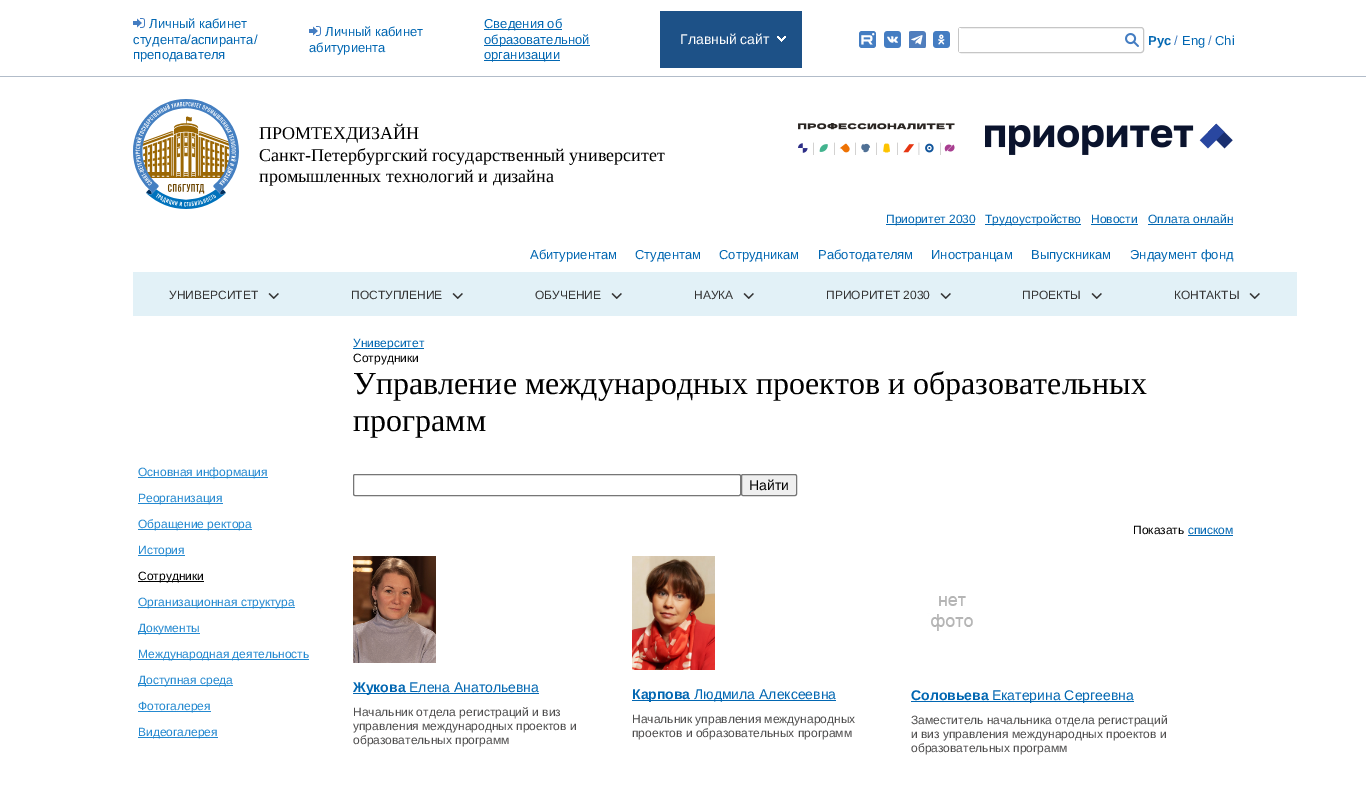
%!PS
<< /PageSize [1366 792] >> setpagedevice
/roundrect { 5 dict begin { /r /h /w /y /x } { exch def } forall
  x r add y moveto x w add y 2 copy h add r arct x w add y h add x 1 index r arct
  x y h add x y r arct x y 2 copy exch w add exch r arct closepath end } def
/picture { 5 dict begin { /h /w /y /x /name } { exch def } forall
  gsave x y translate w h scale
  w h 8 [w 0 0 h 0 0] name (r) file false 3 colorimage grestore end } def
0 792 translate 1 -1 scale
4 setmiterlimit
1 setgray
0 0 1366 792 rectfill
(img1.rgb) 133 18 12 10 picture
/LiberationSans-Regular [13 0 0 -13 0 0] selectfont
0.008 0.404 0.698 setrgbcolor
149 28 moveto (Личный кабинет) show
133 44 moveto (студента/аспиранта/) show
133 59 moveto (преподавателя) show
(img1.rgb) 309 26 12 10 picture
325 36 moveto (Личный кабинет) show
309 52 moveto (абитуриента) show
484 29 78 1 rectfill
484 28 moveto (Сведения об) show
484 45 106 1 rectfill
484 44 moveto (образовательной) show
484 60 76 1 rectfill
484 59 moveto (организации) show
0.114 0.318 0.529 setrgbcolor
660 11 142 57 rectfill
(img2.rgb) 777 36 9 6 picture
/LiberationSans-Regular [14 0 0 -14 0 0] selectfont
1 setgray
680 44 moveto (Главный сайт) show
0.267 0.49 0.761 setrgbcolor
859 31 17 17 3 roundrect fill
(img3.rgb) 861 33 14 12 picture
(img4.rgb) 884 31 17 17 picture
(img5.rgb) 909 31 17 17 picture
(img6.rgb) 933 31 17 17 picture
0.776 setgray
958.5 27.5 185 25 2.5 roundrect stroke
1 setgray
959 28 2 24 rectfill
(img7.rgb) 1125 33 14 14 picture
/LiberationSans-Bold [13 0 0 -13 0 0] selectfont
0.008 0.404 0.698 setrgbcolor
1148 45 moveto (Рус) show
/LiberationSans-Regular [13 0 0 -13 0 0] selectfont
0.263 0.49 0.757 setrgbcolor
1174 45 moveto (/) show
0.008 0.404 0.698 setrgbcolor
1182 45 moveto (Eng) show
0.263 0.49 0.757 setrgbcolor
1208 45 moveto (/) show
0.008 0.404 0.698 setrgbcolor
1215 45 moveto (Chi) show
0.698 0.737 0.788 setrgbcolor
0 76 1366 1 rectfill
(img8.rgb) 133 99 106 110 picture
/LiberationSerif-Regular [18 0 0 -18 0 0] selectfont
0 setgray
259 139 moveto (ПРОМТЕХДИЗАЙН) show
259 161 moveto (Санкт-Петербургский государственный университет) show
259 182 moveto (промышленных технологий и дизайна) show
(img9.rgb) 798 123 157 32 picture
(img10.rgb) 985 123 248 32 picture
0.008 0.404 0.698 setrgbcolor
886 224 89 1 rectfill
/LiberationSans-Regular [12 0 0 -12 0 0] selectfont
886 223 moveto (Приоритет 2030) show
985 224 96 1 rectfill
985 223 moveto (Трудоустройство) show
1091 223 moveto (Новости) show
1091 224 47 1 rectfill
1148 223 moveto (Оплата онлайн) show
1148 224 85 1 rectfill
/LiberationSans-Regular [13 0 0 -13 0 0] selectfont
530 259 moveto (Абитуриентам) show
635 259 moveto (Студентам) show
719 259 moveto (Сотрудникам) show
818 259 moveto (Работодателям) show
931 259 moveto (Иностранцам) show
1031 259 moveto (Выпускникам) show
1130 259 moveto (Эндаумент фонд) show
0.886 0.945 0.969 setrgbcolor
133 272 1164 44 rectfill
/LiberationSans-Regular [12 0 0 -12 0 0] selectfont
0.2 setgray
169 299 moveto (УНИВЕРСИТЕТ) show
(img11.rgb) 268 293 11 6 picture
351 299 moveto (ПОСТУПЛЕНИЕ) show
(img11.rgb) 452 293 11 6 picture
535 299 moveto (ОБУЧЕНИЕ) show
(img11.rgb) 611 293 11 6 picture
694 299 moveto (НАУКА) show
(img11.rgb) 743 293 11 6 picture
826 299 moveto (ПРИОРИТЕТ 2030) show
(img11.rgb) 940 293 11 6 picture
1022 299 moveto (ПРОЕКТЫ) show
(img11.rgb) 1091 293 11 6 picture
1174 299 moveto (КОНТАКТЫ) show
(img11.rgb) 1249 293 11 6 picture
0.008 0.404 0.698 setrgbcolor
353 348 71 1 rectfill
353 347 moveto (Университет) show
0 setgray
353 362 moveto (Сотрудники) show
/LiberationSerif-Regular [32 0 0 -32 0 0] selectfont
353 394 moveto (Управление международных проектов и образовательных) show
353 431 moveto (программ) show
0.141 0.537 0.816 setrgbcolor
138 477 130 1 rectfill
/LiberationSans-Regular [12 0 0 -12 0 0] selectfont
138 476 moveto (Основная информация) show
138 503 85 1 rectfill
138 502 moveto (Реорганизация) show
138 529 114 1 rectfill
138 528 moveto (Обращение ректора) show
138 555 47 1 rectfill
138 554 moveto (История) show
0 setgray
138 581 66 1 rectfill
138 580 moveto (Сотрудники) show
0.141 0.537 0.816 setrgbcolor
138 607 157 1 rectfill
138 606 moveto (Организационная структура) show
138 633 62 1 rectfill
138 632 moveto (Документы) show
138 659 171 1 rectfill
138 658 moveto (Международная деятельность) show
138 685 95 1 rectfill
138 684 moveto (Доступная среда) show
138 711 73 1 rectfill
138 710 moveto (Фотогалерея) show
138 737 80 1 rectfill
138 736 moveto (Видеогалерея) show
0.463 setgray
353.5 474.5 387 21 1.5 roundrect stroke
0.937 setgray
741.5 474.5 55 21 1.5 roundrect gsave fill grestore
0.463 setgray
stroke
/LiberationSans-Regular [14 0 0 -14 0 0] selectfont
0 setgray
749 490 moveto (Найти) show
/LiberationSans-Regular [12 0 0 -12 0 0] selectfont
1133 534 moveto (Показать) show
0.008 0.404 0.698 setrgbcolor
1188 534 moveto (списком) show
1188 535 45 1 rectfill
(img12.rgb) 353 556 83 107 picture
353 693 52 1 rectfill
/LiberationSans-Bold [14 0 0 -14 0 0] selectfont
353 692 moveto (Жукова) show
405 693 134 1 rectfill
/LiberationSans-Regular [14 0 0 -14 0 0] selectfont
409 692 moveto (Елена Анатольевна) show
/LiberationSans-Regular [12 0 0 -12 0 0] selectfont
0.306 0.302 0.302 setrgbcolor
353 716 moveto (Начальник отдела регистраций и виз) show
353 730 moveto (управления международных проектов и) show
353 744 moveto (образовательных программ) show
(img13.rgb) 632 556 83 114 picture
0.008 0.404 0.698 setrgbcolor
632 700 58 1 rectfill
/LiberationSans-Bold [14 0 0 -14 0 0] selectfont
632 699 moveto (Карпова) show
690 700 146 1 rectfill
/LiberationSans-Regular [14 0 0 -14 0 0] selectfont
694 699 moveto (Людмила Алексеевна) show
/LiberationSans-Regular [12 0 0 -12 0 0] selectfont
0.306 0.302 0.302 setrgbcolor
632 723 moveto (Начальник управления международных) show
632 737 moveto (проектов и образовательных программ) show
(img14.rgb) 911 567 62 64 picture
/LiberationSans-Bold [14 0 0 -14 0 0] selectfont
0.008 0.404 0.698 setrgbcolor
911 700 moveto (Соловьева) show
911 701 223 1 rectfill
/LiberationSans-Regular [14 0 0 -14 0 0] selectfont
992 700 moveto (Екатерина Сергеевна) show
/LiberationSans-Regular [12 0 0 -12 0 0] selectfont
0.306 0.302 0.302 setrgbcolor
911 724 moveto (Заместитель начальника отдела регистраций) show
911 738 moveto (и виз управления международных проектов и) show
911 752 moveto (образовательных программ) show
showpage
